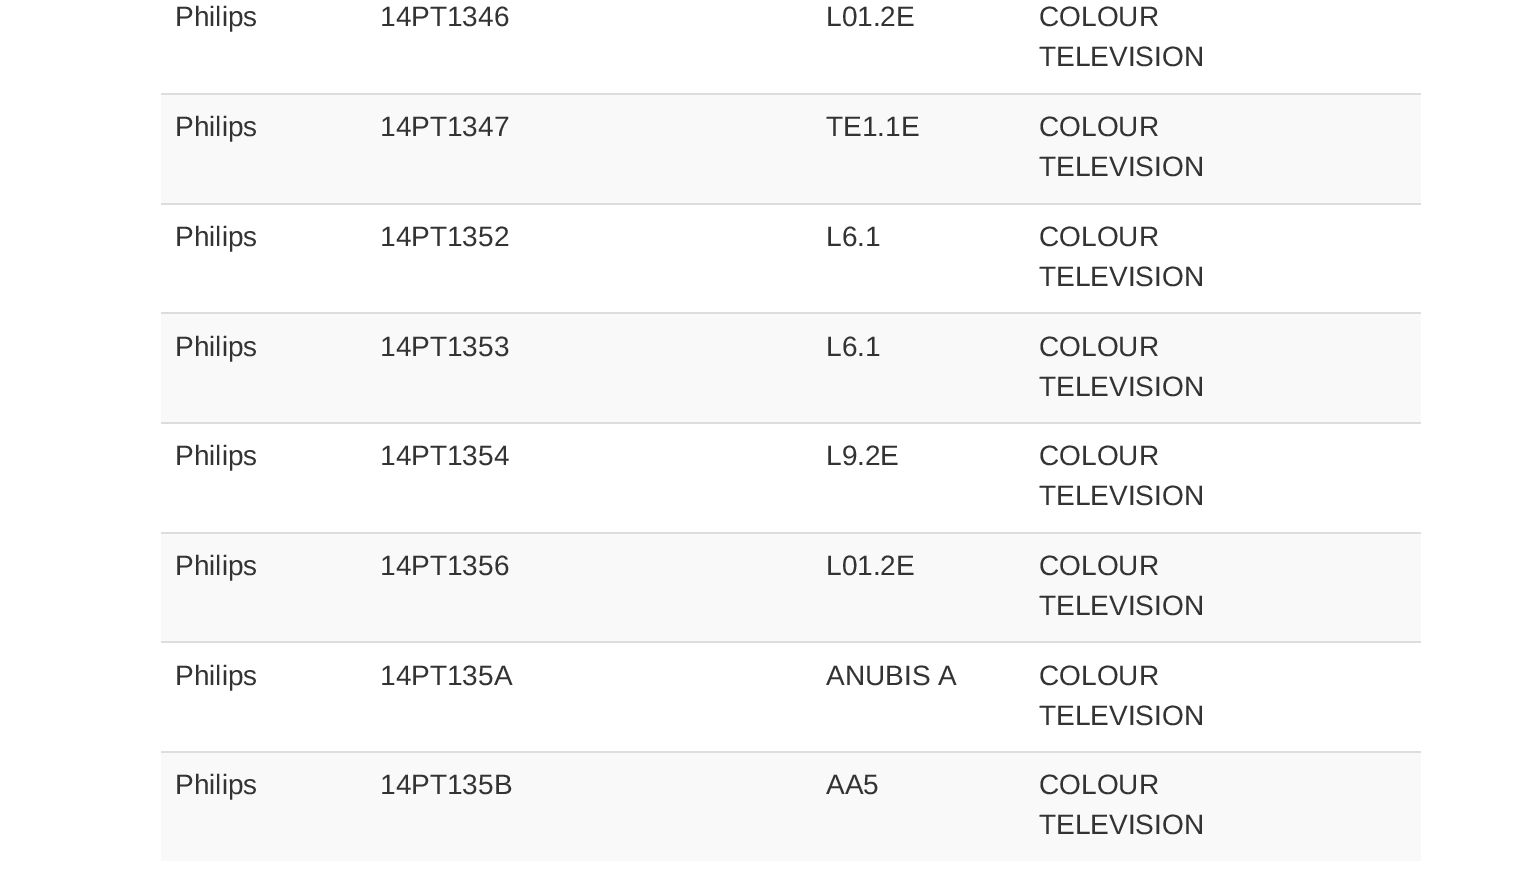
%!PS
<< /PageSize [1528 869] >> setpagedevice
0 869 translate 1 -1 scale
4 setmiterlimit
1 setgray
0 0 1528 869 rectfill
/LiberationSans-Regular [28 0 0 -28 0 0] selectfont
0.2 setgray
175 26 moveto (Philips) show
380 26 moveto (14PT1346) show
826 26 moveto (L01.2E) show
1039 26 moveto (COLOUR) show
1039 66 moveto (TELEVISION) show
0.976 setgray
161 95 1260 108 rectfill
0.867 setgray
161 93 1260 2 rectfill
0.2 setgray
175 136 moveto (Philips) show
380 136 moveto (14PT1347) show
826 136 moveto (TE1.1E) show
1039 136 moveto (COLOUR) show
1039 176 moveto (TELEVISION) show
0.867 setgray
161 203 1260 2 rectfill
0.2 setgray
175 246 moveto (Philips) show
380 246 moveto (14PT1352) show
826 246 moveto (L6.1) show
1039 246 moveto (COLOUR) show
1039 286 moveto (TELEVISION) show
0.976 setgray
161 314 1260 108 rectfill
0.867 setgray
161 312 1260 2 rectfill
0.2 setgray
175 356 moveto (Philips) show
380 356 moveto (14PT1353) show
826 356 moveto (L6.1) show
1039 356 moveto (COLOUR) show
1039 396 moveto (TELEVISION) show
0.867 setgray
161 422 1260 2 rectfill
0.2 setgray
175 465 moveto (Philips) show
380 465 moveto (14PT1354) show
826 465 moveto (L9.2E) show
1039 465 moveto (COLOUR) show
1039 505 moveto (TELEVISION) show
0.976 setgray
161 534 1260 107 rectfill
0.867 setgray
161 532 1260 2 rectfill
0.2 setgray
175 575 moveto (Philips) show
380 575 moveto (14PT1356) show
826 575 moveto (L01.2E) show
1039 575 moveto (COLOUR) show
1039 615 moveto (TELEVISION) show
0.867 setgray
161 641 1260 2 rectfill
0.2 setgray
175 685 moveto (Philips) show
380 685 moveto (14PT135A) show
826 685 moveto (ANUBIS A) show
1039 685 moveto (COLOUR) show
1039 725 moveto (TELEVISION) show
0.976 setgray
161 753 1260 108 rectfill
0.867 setgray
161 751 1260 2 rectfill
0.2 setgray
175 794 moveto (Philips) show
380 794 moveto (14PT135B) show
826 794 moveto (AA5) show
1039 794 moveto (COLOUR) show
1039 834 moveto (TELEVISION) show
showpage
